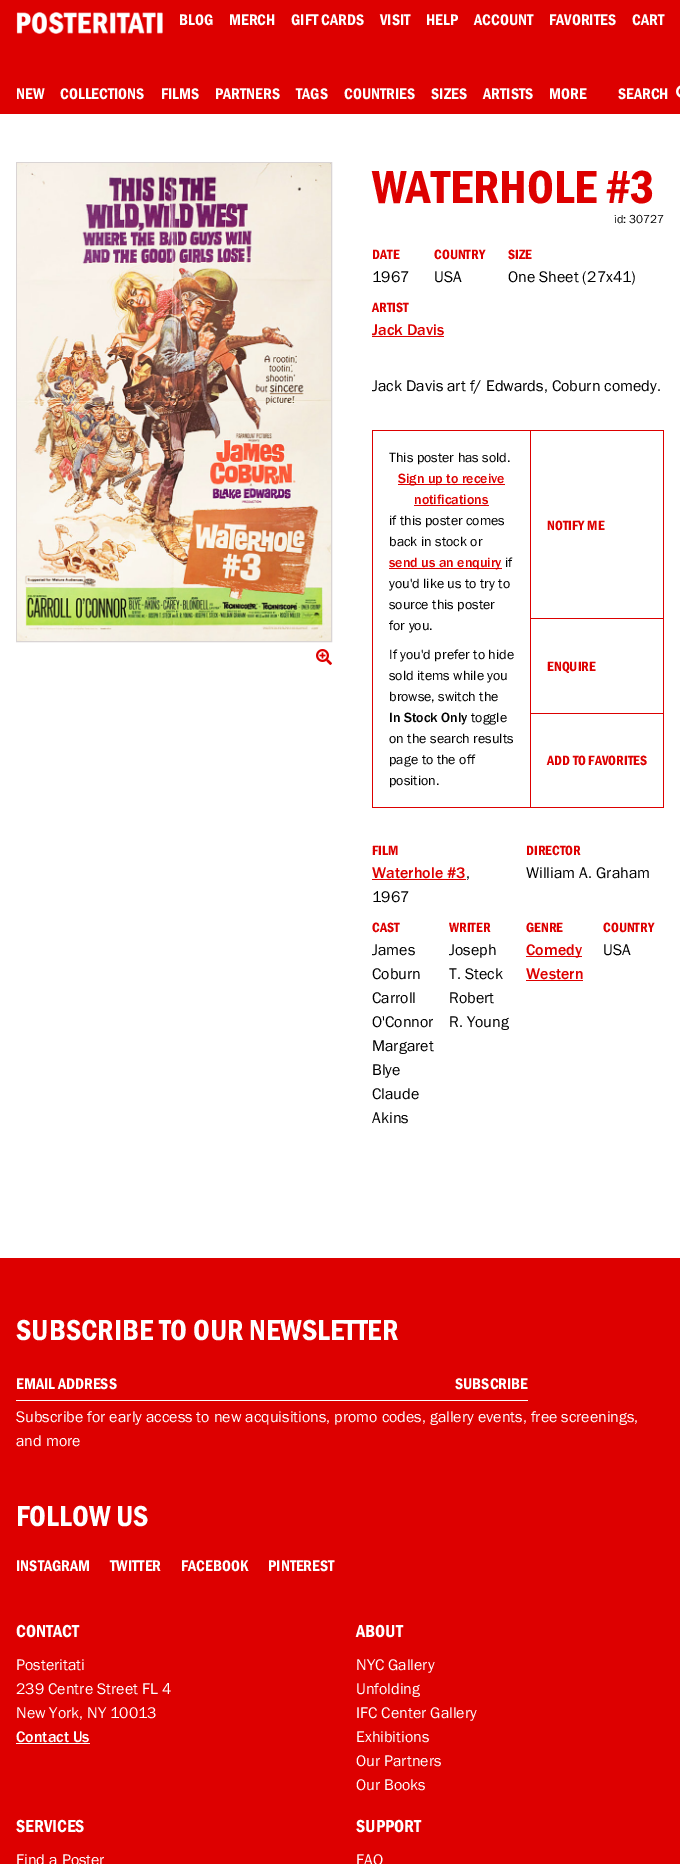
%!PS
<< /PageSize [680 1864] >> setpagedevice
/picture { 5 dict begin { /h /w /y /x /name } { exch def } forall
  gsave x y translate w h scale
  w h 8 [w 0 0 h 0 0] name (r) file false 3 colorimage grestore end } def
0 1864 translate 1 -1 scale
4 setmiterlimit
1 setgray
0 0 680 1864 rectfill
0.867 0 0 setrgbcolor
0 0 680 114 rectfill
(img1.rgb) 16 12 147 22 picture
/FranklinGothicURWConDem-Regular [16 0 0 -16 0 0] selectfont
1 setgray
179 25 moveto (BLOG) show
229 25 moveto (MERCH) show
291 25 moveto (GIFT CARDS) show
380 25 moveto (VISIT) show
426 25 moveto (HELP) show
474 25 moveto (ACCOUNT) show
549 25 moveto (FAVORITES) show
632 25 moveto (CART) show
16 99 moveto (NEW) show
60 99 moveto (COLLECTIONS) show
161 99 moveto (FILMS) show
215 99 moveto (PARTNERS) show
296 99 moveto (TAGS) show
344 99 moveto (COUNTRIES) show
431 99 moveto (SIZES) show
483 99 moveto (ARTISTS) show
549 99 moveto (MORE) show
618 99 moveto (SEARCH) show
(img2.rgb) 676 85 4 13 picture
0.851 0.831 0.831 setrgbcolor
16.5 162.5 315 479 rectstroke
(img3.rgb) 17 163 314 478 picture
(img4.rgb) 316 649 16 16 picture
/FranklinGothicURWConDem-Regular [48 0 0 -48 0 0] selectfont
0.867 0 0 setrgbcolor
372 203 moveto (WATERHOLE #3) show
/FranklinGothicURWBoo-Regular [12 0 0 -12 0 0] selectfont
0 setgray
614 223 moveto (id: 30727) show
/FranklinGothicURWConDem-Regular [14 0 0 -14 0 0] selectfont
0.867 0 0 setrgbcolor
372 259 moveto (DATE) show
/FranklinGothicURWBoo-Regular [16 0 0 -16 0 0] selectfont
0 setgray
372 282 moveto (1967) show
/FranklinGothicURWConDem-Regular [14 0 0 -14 0 0] selectfont
0.867 0 0 setrgbcolor
434 259 moveto (COUNTRY) show
/FranklinGothicURWBoo-Regular [16 0 0 -16 0 0] selectfont
0 setgray
434 282 moveto (USA) show
/FranklinGothicURWConDem-Regular [14 0 0 -14 0 0] selectfont
0.867 0 0 setrgbcolor
508 259 moveto (SIZE) show
/FranklinGothicURWBoo-Regular [16 0 0 -16 0 0] selectfont
0 setgray
508 282 moveto (One Sheet \(27x41\)) show
/FranklinGothicURWConDem-Regular [14 0 0 -14 0 0] selectfont
0.867 0 0 setrgbcolor
372 312 moveto (ARTIST) show
/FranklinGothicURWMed-Regular [16 0 0 -16 0 0] selectfont
372 335 moveto (Jack Davis) show
372 336 72 1 rectfill
/FranklinGothicURWBoo-Regular [16 0 0 -16 0 0] selectfont
0 setgray
372 391 moveto (Jack Davis art f/ Edwards, Coburn comedy.) show
0.867 0 0 setrgbcolor
372 430 292 1 rectfill
663 430 1 378 rectfill
372 807 292 1 rectfill
372 430 1 378 rectfill
/FranklinGothicURWBoo-Regular [14 0 0 -14 0 0] selectfont
0 setgray
389 462 moveto (This poster has sold.) show
0.867 0 0 setrgbcolor
398 484 107 1 rectfill
/FranklinGothicURWMed-Regular [14 0 0 -14 0 0] selectfont
398 483 moveto (Sign up to receive) show
414 504 moveto (notifications) show
414 505 75 1 rectfill
/FranklinGothicURWBoo-Regular [14 0 0 -14 0 0] selectfont
0 setgray
389 525 moveto (if this poster comes) show
389 546 moveto (back in stock or) show
0.867 0 0 setrgbcolor
389 568 113 1 rectfill
/FranklinGothicURWMed-Regular [14 0 0 -14 0 0] selectfont
389 567 moveto (send us an enquiry) show
/FranklinGothicURWBoo-Regular [14 0 0 -14 0 0] selectfont
0 setgray
505 567 moveto (if) show
389 588 moveto (you'd like us to try to) show
389 609 moveto (source this poster) show
389 630 moveto (for you.) show
389 659 moveto (If you'd prefer to hide) show
389 680 moveto (sold items while you) show
389 701 moveto (browse, switch the) show
/FranklinGothicURWMed-Regular [14 0 0 -14 0 0] selectfont
389 722 moveto (In Stock Only) show
/FranklinGothicURWBoo-Regular [14 0 0 -14 0 0] selectfont
471 722 moveto (toggle) show
389 743 moveto (on the search results) show
389 764 moveto (page to the off) show
389 785 moveto (position.) show
/FranklinGothicURWConDem-Regular [14 0 0 -14 0 0] selectfont
0.867 0 0 setrgbcolor
547 530 moveto (NOTIFY ME) show
530 618 134 1 rectfill
530 713 134 1 rectfill
530 713 1 95 rectfill
530 430 1 284 rectfill
547 671 moveto (ENQUIRE) show
547 765 moveto (ADD TO FAVORITES) show
372 855 moveto (FILM) show
/FranklinGothicURWMed-Regular [16 0 0 -16 0 0] selectfont
372 878 moveto (Waterhole #3) show
372 879 94 1 rectfill
/FranklinGothicURWBoo-Regular [16 0 0 -16 0 0] selectfont
0 setgray
466 878 moveto (,) show
372 902 moveto (1967) show
/FranklinGothicURWConDem-Regular [14 0 0 -14 0 0] selectfont
0.867 0 0 setrgbcolor
526 855 moveto (DIRECTOR) show
/FranklinGothicURWBoo-Regular [16 0 0 -16 0 0] selectfont
0 setgray
526 878 moveto (William A. Graham) show
/FranklinGothicURWConDem-Regular [14 0 0 -14 0 0] selectfont
0.867 0 0 setrgbcolor
372 932 moveto (CAST) show
/FranklinGothicURWBoo-Regular [16 0 0 -16 0 0] selectfont
0 setgray
372 955 moveto (James) show
372 979 moveto (Coburn) show
372 1003 moveto (Carroll) show
372 1027 moveto (O'Connor) show
372 1051 moveto (Margaret) show
372 1075 moveto (Blye) show
372 1099 moveto (Claude) show
372 1123 moveto (Akins) show
/FranklinGothicURWConDem-Regular [14 0 0 -14 0 0] selectfont
0.867 0 0 setrgbcolor
449 932 moveto (WRITER) show
/FranklinGothicURWBoo-Regular [16 0 0 -16 0 0] selectfont
0 setgray
449 955 moveto (Joseph) show
449 979 moveto (T. Steck) show
449 1003 moveto (Robert) show
449 1027 moveto (R. Young) show
/FranklinGothicURWConDem-Regular [14 0 0 -14 0 0] selectfont
0.867 0 0 setrgbcolor
526 932 moveto (GENRE) show
526 956 56 1 rectfill
/FranklinGothicURWMed-Regular [16 0 0 -16 0 0] selectfont
526 955 moveto (Comedy) show
526 979 moveto (Western) show
526 980 57 1 rectfill
/FranklinGothicURWConDem-Regular [14 0 0 -14 0 0] selectfont
603 932 moveto (COUNTRY) show
/FranklinGothicURWBoo-Regular [16 0 0 -16 0 0] selectfont
0 setgray
603 955 moveto (USA) show
0.867 0 0 setrgbcolor
0 1258 680 606 rectfill
/FranklinGothicURWConDem-Regular [30 0 0 -30 0 0] selectfont
1 setgray
16 1340 moveto (SUBSCRIBE TO OUR NEWSLETTER) show
16 1400 512 1 rectfill
/FranklinGothicURWConDem-Regular [16 0 0 -16 0 0] selectfont
16 1389 moveto (EMAIL ADDRESS) show
455 1389 moveto (SUBSCRIBE) show
/FranklinGothicURWBoo-Regular [16 0 0 -16 0 0] selectfont
16 1422 moveto (Subscribe for early access to new acquisitions, promo codes, gallery events, free screenings,) show
16 1446 moveto (and more) show
/FranklinGothicURWConDem-Regular [30 0 0 -30 0 0] selectfont
16 1526 moveto (FOLLOW US) show
/FranklinGothicURWConDem-Regular [16 0 0 -16 0 0] selectfont
16 1571 moveto (INSTAGRAM) show
110 1571 moveto (TWITTER) show
181 1571 moveto (FACEBOOK) show
268 1571 moveto (PINTEREST) show
/FranklinGothicURWConDem-Regular [18 0 0 -18 0 0] selectfont
16 1637 moveto (CONTACT) show
/FranklinGothicURWBoo-Regular [16 0 0 -16 0 0] selectfont
16 1670 moveto (Posteritati) show
16 1694 moveto (239 Centre Street FL 4) show
16 1718 moveto (New York, NY 10013) show
/FranklinGothicURWMed-Regular [16 0 0 -16 0 0] selectfont
16 1742 moveto (Contact Us) show
16 1743 74 1 rectfill
/FranklinGothicURWConDem-Regular [18 0 0 -18 0 0] selectfont
356 1637 moveto (ABOUT) show
/FranklinGothicURWBoo-Regular [16 0 0 -16 0 0] selectfont
356 1670 moveto (NYC Gallery) show
356 1694 moveto (Unfolding) show
356 1718 moveto (IFC Center Gallery) show
356 1742 moveto (Exhibitions) show
356 1766 moveto (Our Partners) show
356 1790 moveto (Our Books) show
/FranklinGothicURWConDem-Regular [18 0 0 -18 0 0] selectfont
16 1832 moveto (SERVICES) show
/FranklinGothicURWBoo-Regular [16 0 0 -16 0 0] selectfont
16 1865 moveto (Find a Poster) show
/FranklinGothicURWConDem-Regular [18 0 0 -18 0 0] selectfont
356 1832 moveto (SUPPORT) show
/FranklinGothicURWBoo-Regular [16 0 0 -16 0 0] selectfont
356 1865 moveto (FAQ) show
showpage
